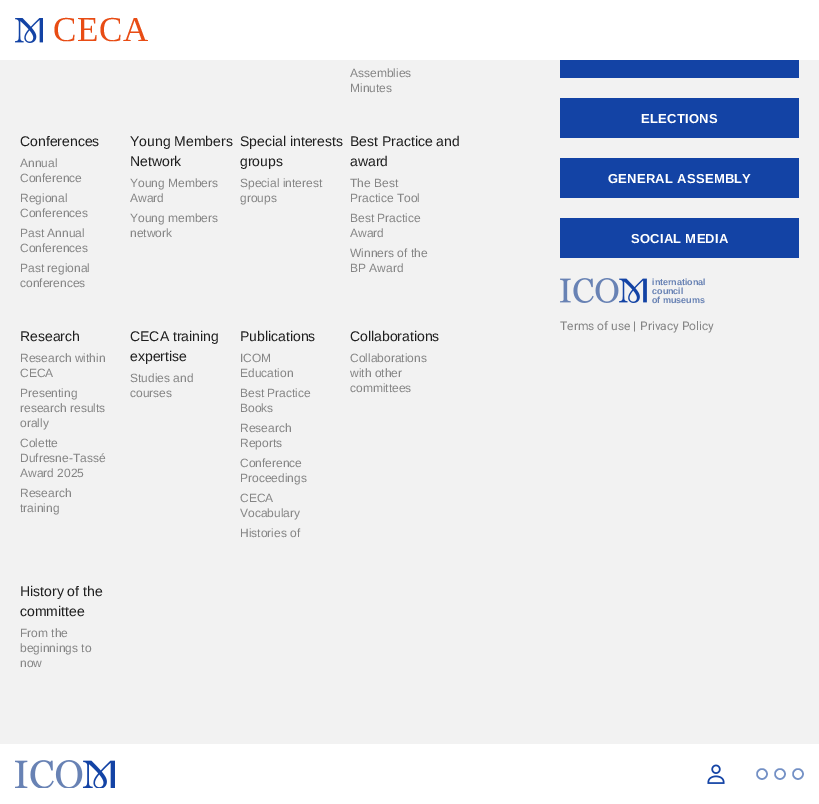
%!PS
<< /PageSize [819 804] >> setpagedevice
/picture { 5 dict begin { /h /w /y /x /name } { exch def } forall
  gsave x y translate w h scale
  w h 8 [w 0 0 h 0 0] name (r) file false 3 colorimage grestore end } def
0 804 translate 1 -1 scale
4 setmiterlimit
0.949 setgray
0 0 819 804 rectfill
1 setgray
0 0 819 60 rectfill
(img1.rgb) 15 18 28 25 picture
/LiberationSerif-Regular [35 0 0 -35 0 0] selectfont
0.91 0.298 0.078 setrgbcolor
53 41 moveto 0.5 0 (CECA) ashow
/LiberationSans-Regular [12 0 0 -12 0 0] selectfont
0.522 setgray
350 77 moveto (Assemblies) show
350 92 moveto (Minutes) show
/LiberationSans-Regular [14 0 0 -14 0 0] selectfont
0.118 setgray
20 146 moveto (Conferences) show
/LiberationSans-Regular [12 0 0 -12 0 0] selectfont
0.522 setgray
20 167 moveto (Annual) show
20 182 moveto (Conference) show
20 202 moveto (Regional) show
20 217 moveto (Conferences) show
20 237 moveto (Past Annual) show
20 252 moveto (Conferences) show
20 272 moveto (Past regional) show
20 287 moveto (conferences) show
/LiberationSans-Regular [14 0 0 -14 0 0] selectfont
0.118 setgray
130 146 moveto (Young Members) show
130 166 moveto (Network) show
/LiberationSans-Regular [12 0 0 -12 0 0] selectfont
0.522 setgray
130 187 moveto (Young Members) show
130 202 moveto (Award) show
130 222 moveto (Young members) show
130 237 moveto (network) show
/LiberationSans-Regular [14 0 0 -14 0 0] selectfont
0.118 setgray
240 146 moveto (Special interests) show
240 166 moveto (groups) show
/LiberationSans-Regular [12 0 0 -12 0 0] selectfont
0.522 setgray
240 187 moveto (Special interest) show
240 202 moveto (groups) show
/LiberationSans-Regular [14 0 0 -14 0 0] selectfont
0.118 setgray
350 146 moveto (Best Practice and) show
350 166 moveto (award) show
/LiberationSans-Regular [12 0 0 -12 0 0] selectfont
0.522 setgray
350 187 moveto (The Best) show
350 202 moveto (Practice Tool) show
350 222 moveto (Best Practice) show
350 237 moveto (Award) show
350 257 moveto (Winners of the) show
350 272 moveto (BP Award) show
/LiberationSans-Regular [14 0 0 -14 0 0] selectfont
0.118 setgray
20 341 moveto (Research) show
/LiberationSans-Regular [12 0 0 -12 0 0] selectfont
0.522 setgray
20 362 moveto (Research within) show
20 377 moveto (CECA) show
20 397 moveto (Presenting) show
20 412 moveto (research results) show
20 427 moveto (orally) show
20 447 moveto (Colette) show
20 462 moveto (Dufresne-Tassé) show
20 477 moveto (Award 2025) show
20 497 moveto (Research) show
20 512 moveto (training) show
/LiberationSans-Regular [14 0 0 -14 0 0] selectfont
0.118 setgray
130 341 moveto (CECA training) show
130 361 moveto (expertise) show
/LiberationSans-Regular [12 0 0 -12 0 0] selectfont
0.522 setgray
130 382 moveto (Studies and) show
130 397 moveto (courses) show
/LiberationSans-Regular [14 0 0 -14 0 0] selectfont
0.118 setgray
240 341 moveto (Publications) show
/LiberationSans-Regular [12 0 0 -12 0 0] selectfont
0.522 setgray
240 362 moveto (ICOM) show
240 377 moveto (Education) show
240 397 moveto (Best Practice) show
240 412 moveto (Books) show
240 432 moveto (Research) show
240 447 moveto (Reports) show
240 467 moveto (Conference) show
240 482 moveto (Proceedings) show
240 502 moveto (CECA) show
240 517 moveto (Vocabulary) show
240 537 moveto (Histories of) show
/LiberationSans-Regular [14 0 0 -14 0 0] selectfont
0.118 setgray
350 341 moveto (Collaborations) show
/LiberationSans-Regular [12 0 0 -12 0 0] selectfont
0.522 setgray
350 362 moveto (Collaborations) show
350 377 moveto (with other) show
350 392 moveto (committees) show
/LiberationSans-Regular [14 0 0 -14 0 0] selectfont
0.118 setgray
20 596 moveto (History of the) show
20 616 moveto (committee) show
/LiberationSans-Regular [12 0 0 -12 0 0] selectfont
0.522 setgray
20 637 moveto (From the) show
20 652 moveto (beginnings to) show
20 667 moveto (now) show
0.075 0.263 0.647 setrgbcolor
560 60 239 18 rectfill
560 98 239 40 rectfill
/LiberationSans-Bold [13 0 0 -13 0 0] selectfont
1 setgray
641 123 moveto 0.25 0 (ELECTIONS) ashow
0.075 0.263 0.647 setrgbcolor
560 158 239 40 rectfill
1 setgray
608 183 moveto 0.25 0 (GENERAL ASSEMBLY) ashow
0.075 0.263 0.647 setrgbcolor
560 218 239 40 rectfill
1 setgray
631 243 moveto 0.25 0 (SOCIAL MEDIA) ashow
(img2.rgb) 560 278 87 25 picture
/LiberationSans-Bold [9 0 0 -9 0 0] selectfont
0.408 0.51 0.706 setrgbcolor
652 285 moveto (international) show
652 294 moveto (council) show
652 303 moveto (of museums) show
/Roboto-Regular [12 0 0 -12 0 0] selectfont
0.522 setgray
560 330 moveto (Terms of use |) show
640 330 moveto (Privacy Policy) show
1 setgray
0 744 819 60 rectfill
(img3.rgb) 15 760 100 28 picture
(img4.rgb) 707 764 18 20 picture
0.451 0.565 0.773 setrgbcolor
1.5 setlinewidth
newpath 762 774 5 0 360 arc closepath stroke
newpath 780 774 5 0 360 arc closepath stroke
newpath 798 774 5 0 360 arc closepath stroke
showpage
